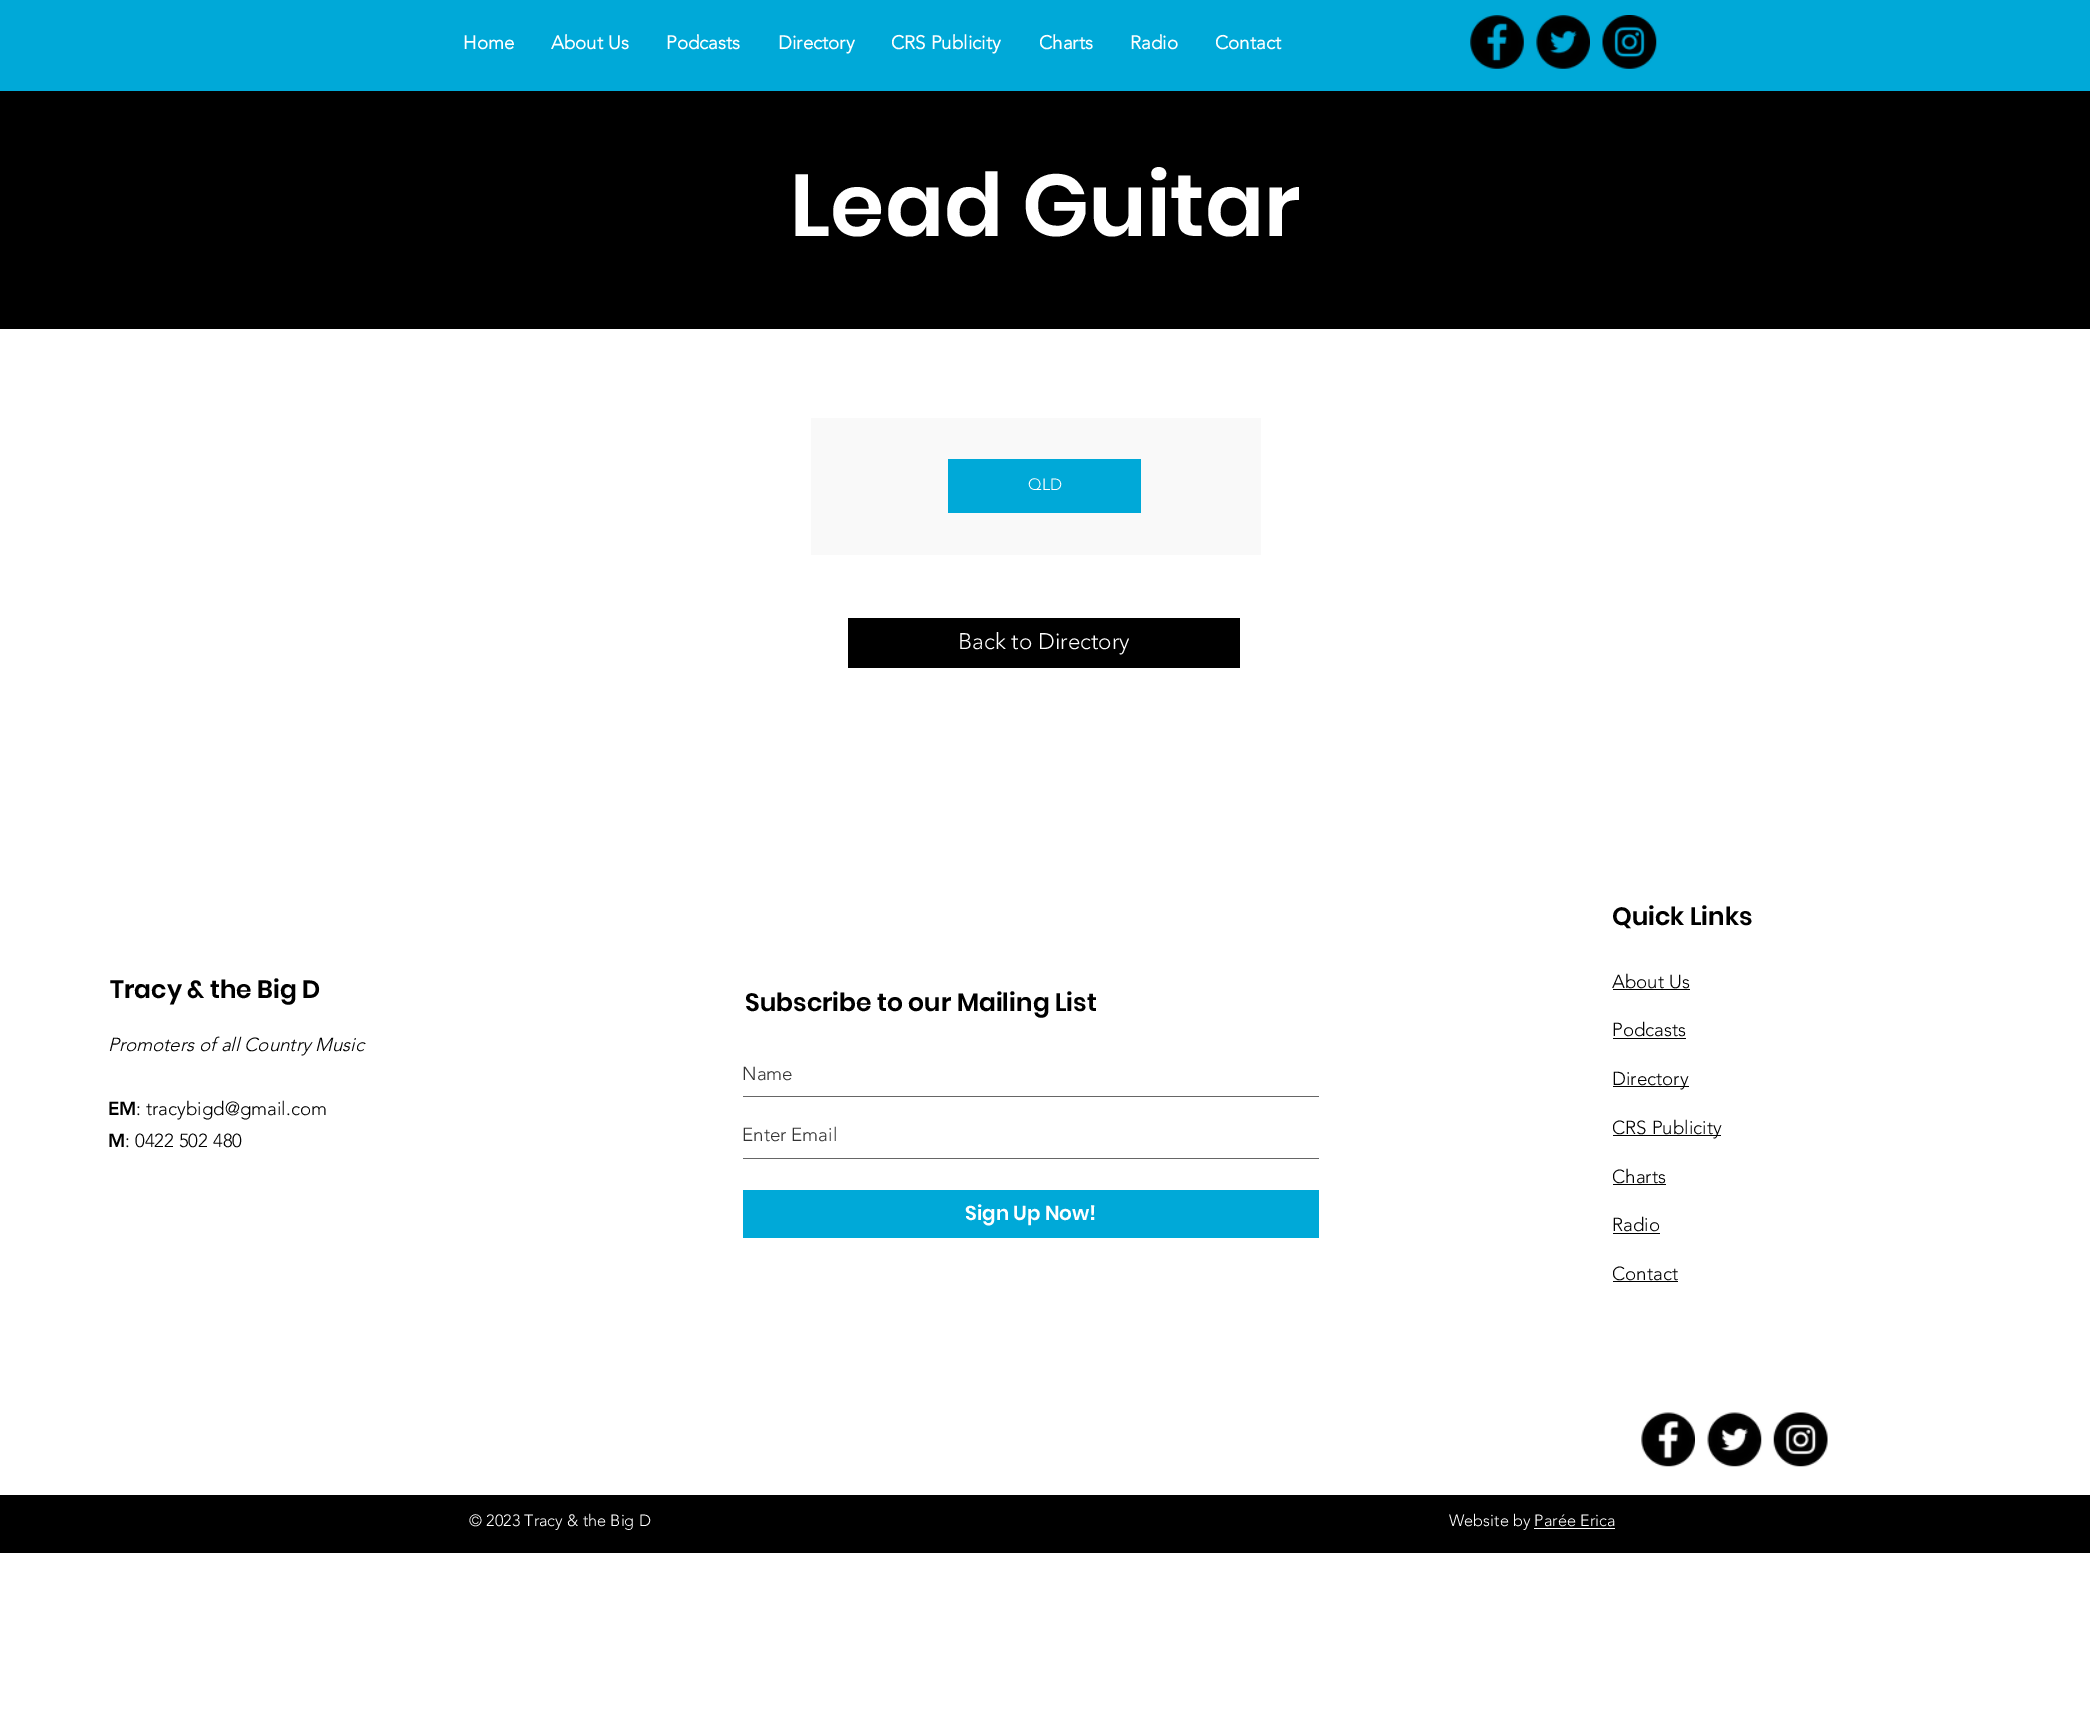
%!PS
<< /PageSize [2090 1711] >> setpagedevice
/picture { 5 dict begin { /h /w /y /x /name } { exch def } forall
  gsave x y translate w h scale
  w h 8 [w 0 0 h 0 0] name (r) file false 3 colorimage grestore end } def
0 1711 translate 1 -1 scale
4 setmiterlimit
1 setgray
0 0 2090 1711 rectfill
0 0.663 0.847 setrgbcolor
0 0 2090 91 rectfill
/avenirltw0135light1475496-Bold [18.75 0 0 -18.75 0 0] selectfont
1 setgray
463 49 moveto (Home) show
551 49 moveto (About Us) show
666 49 moveto (Podcasts) show
778 49 moveto (Directory) show
891 49 moveto (CRS Publicity) show
1039 49 moveto (Charts) show
1130 49 moveto (Radio) show
1215 49 moveto (Contact) show
(img1.rgb) 1470 15 54 54 picture
(img2.rgb) 1536 15 54 54 picture
(img3.rgb) 1602 15 55 54 picture
0 setgray
0 91 2090 238 rectfill
/Poppins-SemiBold [87.5 0 0 -87.5 0 0] selectfont
1 setgray
790 236 moveto (Lead Guitar) show
0.976 setgray
811 418 450 137 rectfill
0 0.663 0.847 setrgbcolor
948 459 193 54 rectfill
/avenirltw0135light1475496-Light [16.25 0 0 -16.25 0 0] selectfont
1 setgray
1028 490 moveto (QLD) show
0 setgray
848 618 392 50 rectfill
/avenirltw0135light1475496-Light [22.5 0 0 -22.5 0 0] selectfont
1 setgray
958 649 moveto (Back to Directory) show
/Poppins-SemiBold [25 0 0 -25 0 0] selectfont
0 setgray
110 998 moveto (Tracy & the Big D) show
/avenirltw0135light1475496-LightItalic [18.75 0 0 -18.75 0 0] selectfont
108 1051 moveto (Promoters of all Country Music) show
/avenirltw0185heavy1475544-Black [18.75 0 0 -18.75 0 0] selectfont
108 1115 moveto (EM) show
/avenirltw0135light1475496-Light [18.75 0 0 -18.75 0 0] selectfont
136 1115 moveto (: tracybigd@gmail.com) show
/avenirltw0185heavy1475544-Black [18.75 0 0 -18.75 0 0] selectfont
108 1147 moveto (M) show
/avenirltw0135light1475496-Light [18.75 0 0 -18.75 0 0] selectfont
125 1147 moveto (: 0422 502 480) show
/Poppins-SemiBold [25 0 0 -25 0 0] selectfont
745 1011 moveto (Subscribe to our Mailing List) show
0.4 setgray
743 1096 576 1 rectfill
/avenirltw0135light1475496-Light [18.75 0 0 -18.75 0 0] selectfont
0.2 setgray
742 1080 moveto (Name) show
0.4 setgray
743 1158 576 1 rectfill
0.2 setgray
742 1141 moveto (Enter Email) show
0 0.663 0.847 setrgbcolor
743 1190 576 48 rectfill
/Poppins-SemiBold [20 0 0 -20 0 0] selectfont
1 setgray
965 1220 moveto (Sign Up Now!) show
/Poppins-SemiBold [25 0 0 -25 0 0] selectfont
0 setgray
1612 925 moveto (Quick Links) show
/avenirltw0135light1475496-Light [18.75 0 0 -18.75 0 0] selectfont
1612 988 moveto (About Us) show
1613 989 77 1 rectfill
1612 1036 moveto (Podcasts) show
1613 1038 73 1 rectfill
1613 1086 76 1 rectfill
1612 1085 moveto (Directory) show
1613 1135 108 1 rectfill
1612 1134 moveto (CRS Publicity) show
1612 1183 moveto (Charts) show
1613 1184 53 1 rectfill
1612 1231 moveto (Radio) show
1613 1233 47 1 rectfill
1612 1280 moveto (Contact) show
1613 1281 65 1 rectfill
(img4.rgb) 1641 1412 54 55 picture
(img5.rgb) 1707 1412 55 55 picture
(img6.rgb) 1773 1412 55 55 picture
0 1495 2090 58 rectfill
/avenirltw0135light1475496-Light [16.25 0 0 -16.25 0 0] selectfont
1 setgray
469 1526 moveto (© 2023 Tracy & the Big D) show
1449 1526 moveto (Website by Parée Erica) show
1534 1528 81 1 rectfill
showpage
